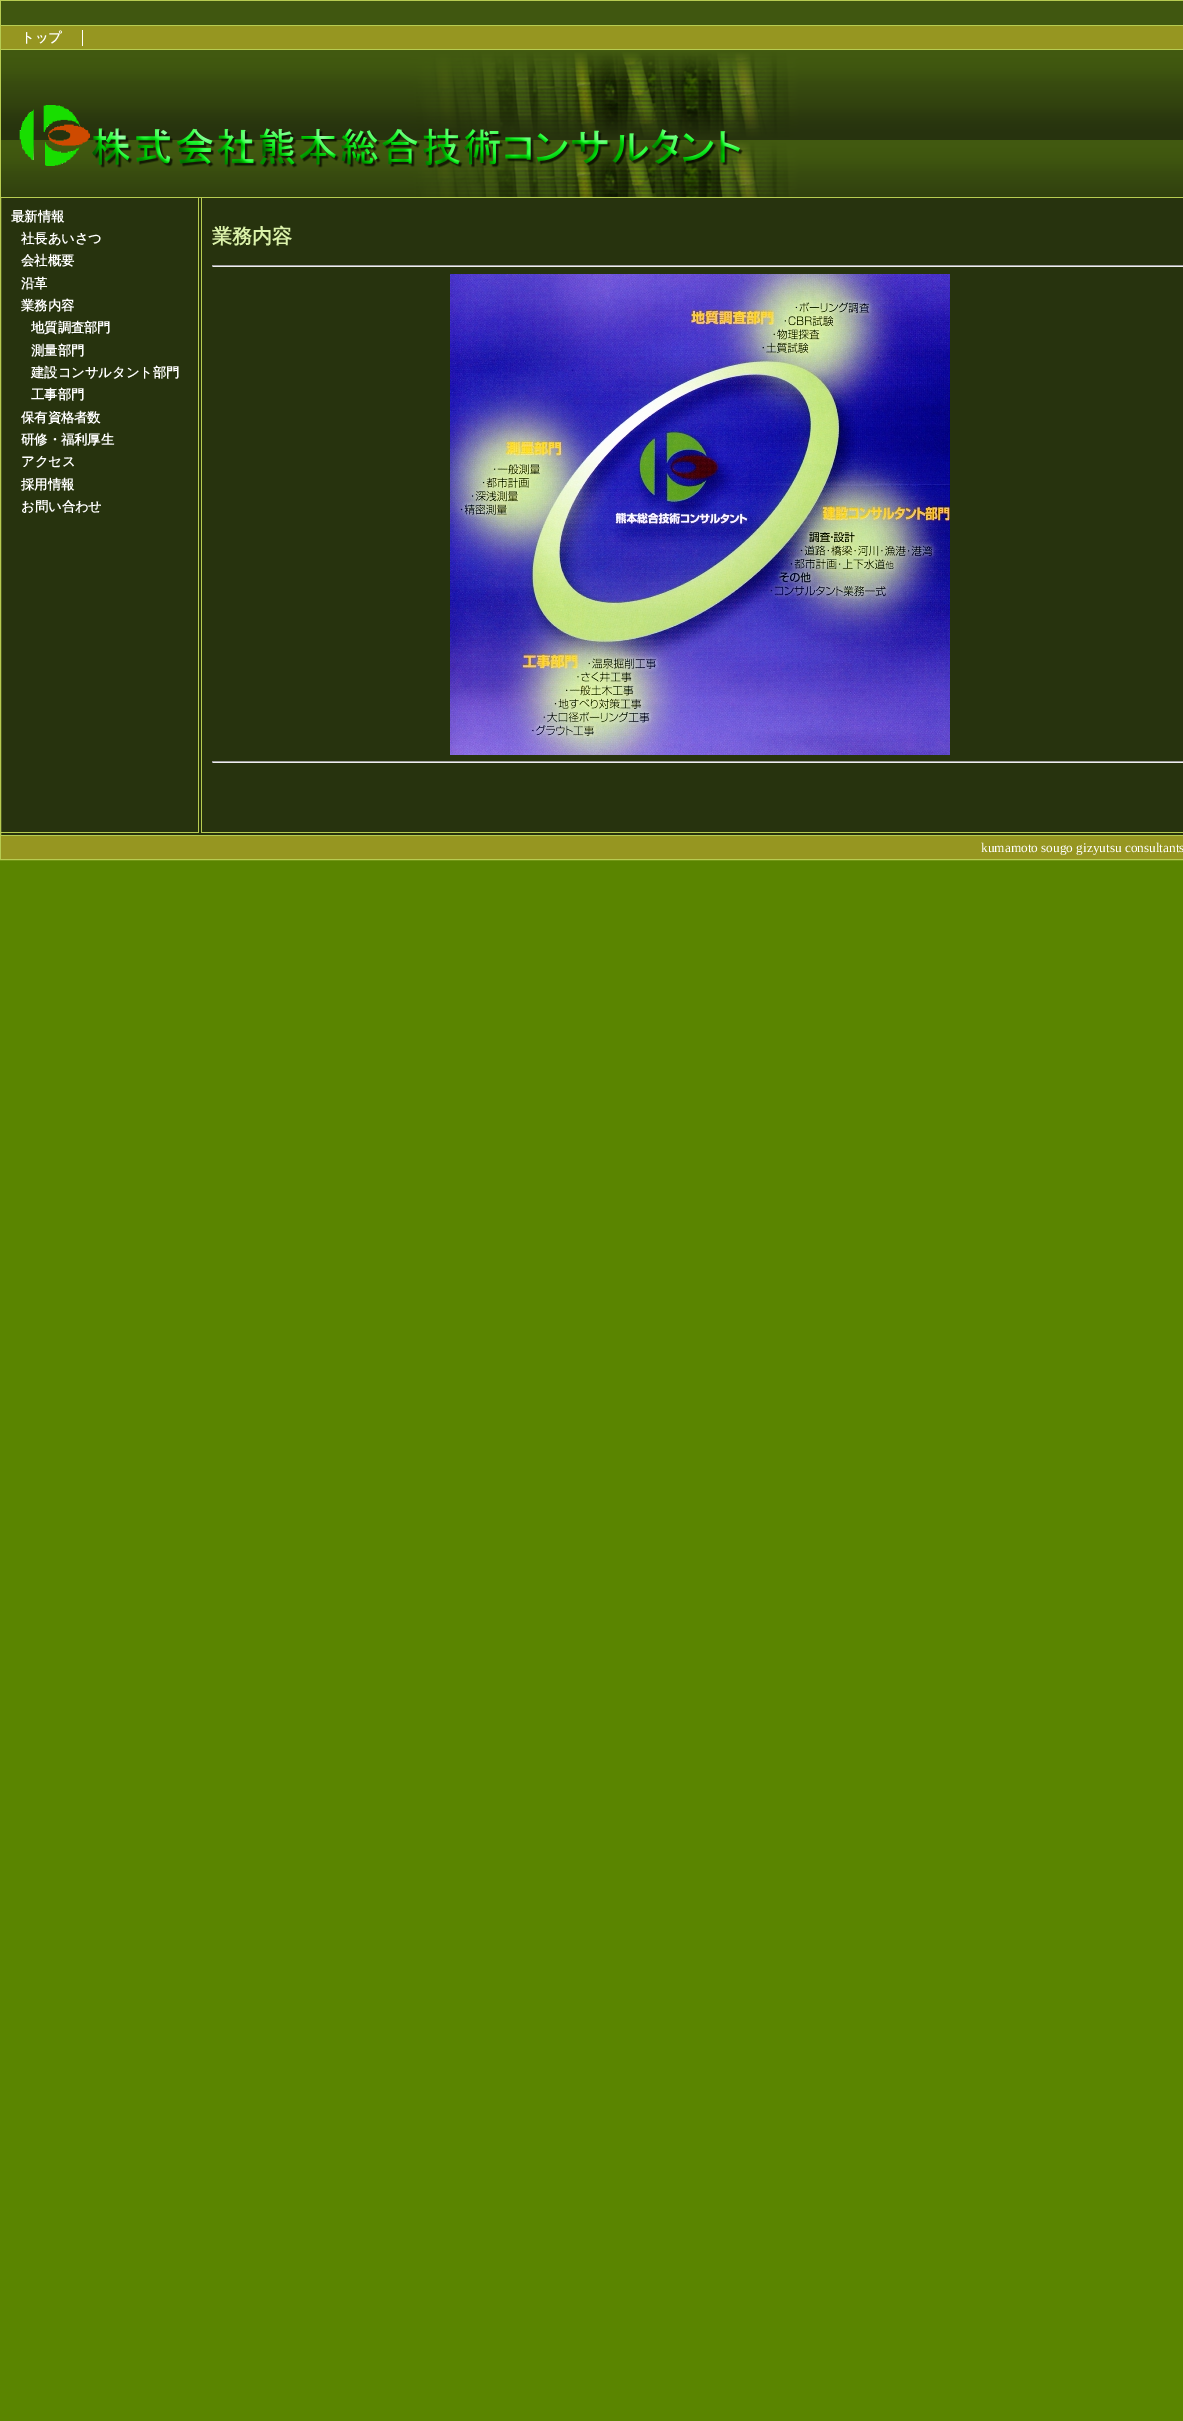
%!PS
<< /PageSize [1183 2421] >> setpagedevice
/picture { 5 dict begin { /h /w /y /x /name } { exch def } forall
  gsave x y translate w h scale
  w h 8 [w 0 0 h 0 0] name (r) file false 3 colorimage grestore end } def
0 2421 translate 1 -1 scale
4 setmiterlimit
0.353 0.522 0 setrgbcolor
0 0 1183 2421 rectfill
0.153 0.2 0.055 setrgbcolor
1 198 1182 637 rectfill
0.718 0.8 0.322 setrgbcolor
0.5 0.5 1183 859 rectstroke
0.251 0.341 0.063 setrgbcolor
1 1 1182 24 rectfill
0.718 0.8 0.322 setrgbcolor
1 25 1182 1 rectfill
0.588 0.588 0.129 setrgbcolor
1 26 1182 23 rectfill
0.718 0.8 0.322 setrgbcolor
1 49 1182 1 rectfill
1 setgray
82 30 1 16 rectfill
/WenQuanYiZenHei-Bold [13.3 0 0 -13.3 0 0] selectfont
21 42 moveto (トップ) show
(img1.rgb) 1 50 1182 147 picture
0.718 0.8 0.322 setrgbcolor
1 197 1182 1 rectfill
(img2.rgb) 19 105 71 61 picture
(img3.rgb) 92 128 651 40 picture
198 198 1 635 rectfill
1 832 198 1 rectfill
1 setgray
11 221 moveto (最新情報) show
21 243 moveto (社長あいさつ) show
21 265 moveto (会社概要) show
21 288 moveto (沿革) show
21 310 moveto (業務内容) show
31 332 moveto (地質調査部門) show
31 355 moveto (測量部門) show
31 377 moveto (建設コンサルタント部門) show
31 399 moveto (工事部門) show
21 422 moveto (保有資格者数) show
21 444 moveto (研修・福利厚生) show
21 466 moveto (アクセス) show
21 489 moveto (採用情報) show
21 511 moveto (お問い合わせ) show
0.718 0.8 0.322 setrgbcolor
201 832 982 1 rectfill
201 198 1 635 rectfill
/WenQuanYiZenHei-Bold [20 0 0 -20 0 0] selectfont
0.859 0.949 0.667 setrgbcolor
212 243 moveto (業務内容) show
0.624 setgray
212 265 971 1 rectfill
0.933 setgray
212 266 971 1 rectfill
0.624 setgray
212 265 1 2 rectfill
(img4.rgb) 450 274 500 481 picture
212 761 971 1 rectfill
0.933 setgray
212 762 971 1 rectfill
0.624 setgray
212 761 1 2 rectfill
0.588 0.588 0.129 setrgbcolor
1 836 1182 23 rectfill
0.718 0.8 0.322 setrgbcolor
1 835 1182 1 rectfill
/LiberationSerif-Regular [13.3 0 0 -13.3 0 0] selectfont
1 setgray
981 852 moveto (kumamoto sougo gizyutsu consultants) show
showpage
